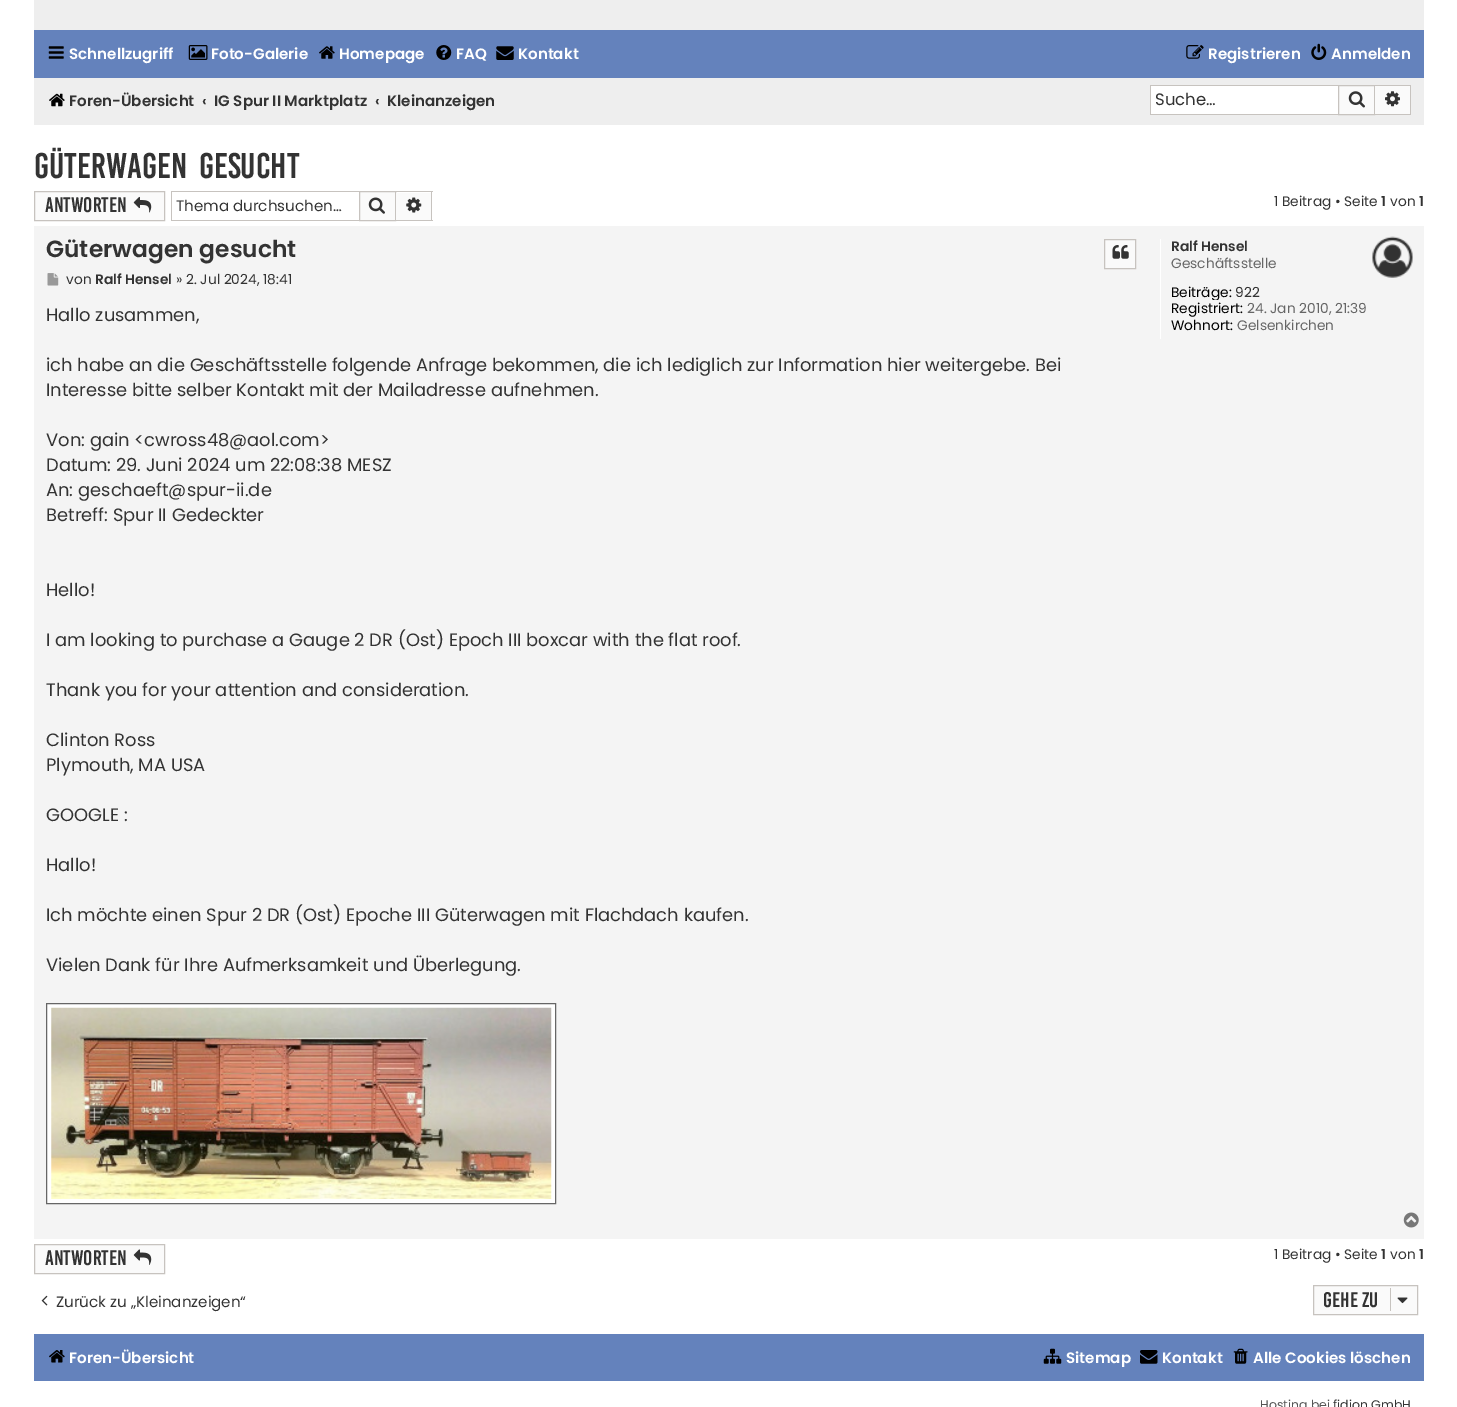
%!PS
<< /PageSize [1457 1407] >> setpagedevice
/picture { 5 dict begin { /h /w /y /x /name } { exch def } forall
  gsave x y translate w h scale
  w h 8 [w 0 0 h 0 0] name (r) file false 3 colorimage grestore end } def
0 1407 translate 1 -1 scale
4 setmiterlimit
1 setgray
0 0 1457 1407 rectfill
0.933 setgray
34 0 1390 30 rectfill
0.392 0.51 0.737 setrgbcolor
34 30 1390 48 rectfill
(img1.rgb) 48 46 16 13 picture
/Poppins-SemiBold [15.1 0 0 -15.1 0 0] selectfont
1 setgray
69 59 moveto (Schnellzugriff) show
(img2.rgb) 188 45 20 15 picture
211 59 moveto (Foto-Galerie) show
(img3.rgb) 319 46 16 13 picture
339 59 moveto (Homepage) show
(img4.rgb) 436 45 16 15 picture
456 59 moveto (FAQ) show
(img5.rgb) 496 46 18 14 picture
518 59 moveto (Kontakt) show
(img6.rgb) 1186 45 18 14 picture
1208 59 moveto (Registrieren) show
(img7.rgb) 1311 43 16 17 picture
1331 59 moveto (Anmelden) show
0.933 setgray
34 78 1390 47 rectfill
(img8.rgb) 49 93 16 14 picture
0.2 setgray
69 106 moveto (Foren-Übersicht) show
202 106 moveto (‹) show
214 106 moveto (IG Spur II Marktplatz) show
375 106 moveto (‹) show
387 106 moveto (Kleinanzeigen) show
1 setgray
1151 86 187 28 rectfill
0.78 0.765 0.749 setrgbcolor
1150 85 188 1 rectfill
1150 114 188 1 rectfill
1150 85 1 30 rectfill
/Poppins-Regular [16.5 0 0 -16.5 0 0] selectfont
0.2 setgray
1155 105 moveto (Suche…) show
0.98 setgray
newpath 1338.5 85.5 moveto 1374.5 85.5 lineto 1374.5 114.5 lineto 1338.5 114.5 lineto closepath gsave fill grestore
0.78 0.765 0.749 setrgbcolor
stroke
(img9.rgb) 1348 91 17 17 picture
0.98 setgray
1375 86 35 28 rectfill
0.78 0.765 0.749 setrgbcolor
1375 85 36 1 rectfill
1410 85 1 30 rectfill
1375 114 36 1 rectfill
(img10.rgb) 1385 91 15 16 picture
/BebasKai-Regular [27.5 0 0 -27.5 0 0] selectfont
0.2 setgray
34 178 moveto 5 0 32 (Güterwagen gesucht) widthshow
0.98 setgray
newpath 34.5 191.5 moveto 164.5 191.5 lineto 164.5 220.5 lineto 34.5 220.5 lineto closepath gsave fill grestore
0.78 0.765 0.749 setrgbcolor
stroke
/BebasKai-Regular [16.25 0 0 -16.25 0 0] selectfont
0.2 setgray
45 212 moveto (Antworten) show
(img11.rgb) 133 196 19 17 picture
0.78 0.765 0.749 setrgbcolor
171 191 188 1 rectfill
171 220 188 1 rectfill
171 191 1 30 rectfill
/Poppins-Regular [15.1 0 0 -15.1 0 0] selectfont
0.2 setgray
176 211 moveto (Thema durchsuchen…) show
0.98 setgray
newpath 359.5 191.5 moveto 395.5 191.5 lineto 395.5 220.5 lineto 359.5 220.5 lineto closepath gsave fill grestore
0.78 0.765 0.749 setrgbcolor
stroke
(img12.rgb) 368 197 17 17 picture
0.98 setgray
396 193 35 27 rectfill
0.78 0.765 0.749 setrgbcolor
396 191 37 1 rectfill
431 191 1 30 rectfill
396 220 37 1 rectfill
(img13.rgb) 406 197 16 16 picture
/Poppins-Regular [13.75 0 0 -13.75 0 0] selectfont
0.2 setgray
1274 206 moveto (1 Beitrag • Seite) show
/Poppins-SemiBold [13.75 0 0 -13.75 0 0] selectfont
1381 206 moveto (1) show
/Poppins-Regular [13.75 0 0 -13.75 0 0] selectfont
1390 206 moveto (von) show
/Poppins-SemiBold [13.75 0 0 -13.75 0 0] selectfont
1419 206 moveto (1) show
0.957 setgray
34 226 1390 1013 rectfill
(img14.rgb) 1372 236 41 42 picture
/Poppins-SemiBold [23.4 0 0 -23.4 0 0] selectfont
0.2 setgray
46 257 moveto (Güterwagen gesucht) show
0.98 setgray
newpath 1104.5 239.5 moveto 1135.5 239.5 lineto 1135.5 268.5 lineto 1104.5 268.5 lineto closepath gsave fill grestore
0.78 0.765 0.749 setrgbcolor
stroke
(img15.rgb) 1112 245 17 14 picture
(img16.rgb) 47 273 12 13 picture
/Poppins-Regular [13.75 0 0 -13.75 0 0] selectfont
0.2 setgray
66 284 moveto (von) show
/Poppins-SemiBold [13.75 0 0 -13.75 0 0] selectfont
95 284 moveto (Ralf Hensel) show
/Poppins-Regular [13.75 0 0 -13.75 0 0] selectfont
176 284 moveto (» 2. Jul 2024, 18:41) show
/Poppins-Regular [17.88 0 0 -17.88 0 0] selectfont
46 321 moveto (Hallo zusammen,) show
46 371 moveto (ich habe an die Geschäftsstelle folgende Anfrage bekommen, die ich lediglich zur Information hier weitergebe. Bei) show
46 396 moveto (Interesse bitte selber Kontakt mit der Mailadresse aufnehmen.) show
46 446 moveto (Von: gain <cwross48@aol.com>) show
46 471 moveto (Datum: 29. Juni 2024 um 22:08:38 MESZ) show
46 496 moveto (An: geschaeft@spur-ii.de) show
46 521 moveto (Betreff: Spur II Gedeckter) show
46 596 moveto (Hello!) show
46 646 moveto (I am looking to purchase a Gauge 2 DR \(Ost\) Epoch III boxcar with the flat roof.) show
46 696 moveto (Thank you for your attention and consideration.) show
46 746 moveto (Clinton Ross) show
46 771 moveto (Plymouth, MA USA) show
46 821 moveto (GOOGLE :) show
46 871 moveto (Hallo!) show
46 921 moveto (Ich möchte einen Spur 2 DR \(Ost\) Epoche III Güterwagen mit Flachdach kaufen.) show
46 971 moveto (Vielen Dank für Ihre Aufmerksamkeit und Überlegung.) show
1 setgray
newpath 46.5 1003.5 moveto 555.5 1003.5 lineto 555.5 1203.5 lineto 46.5 1203.5 lineto closepath gsave fill grestore
0.4 setgray
stroke
(img17.rgb) 51 1007 501 192 picture
1 setgray
1160 239 1 100 rectfill
/Poppins-SemiBold [13.75 0 0 -13.75 0 0] selectfont
0.2 setgray
1171 251 moveto (Ralf Hensel) show
/Poppins-Regular [13.75 0 0 -13.75 0 0] selectfont
0.4 setgray
1171 268 moveto (Geschäftsstelle) show
gsave
1171 284 240 16 rectclip
0 setgray
1171 297 moveto (Beiträge:) show
grestore
0.2 setgray
1235 297 moveto (922) show
0 setgray
1171 313 moveto (Registriert:) show
0.4 setgray
1247 313 moveto (24. Jan 2010, 21:39) show
0 setgray
1171 330 moveto (Wohnort:) show
0.4 setgray
1237 330 moveto (Gelsenkirchen) show
(img18.rgb) 1403 1212 16 16 picture
0.98 setgray
newpath 34.5 1244.5 moveto 164.5 1244.5 lineto 164.5 1273.5 lineto 34.5 1273.5 lineto closepath gsave fill grestore
0.78 0.765 0.749 setrgbcolor
stroke
/BebasKai-Regular [16.25 0 0 -16.25 0 0] selectfont
0.2 setgray
45 1265 moveto (Antworten) show
(img19.rgb) 133 1249 19 16 picture
/Poppins-Regular [13.75 0 0 -13.75 0 0] selectfont
1274 1259 moveto (1 Beitrag • Seite) show
/Poppins-SemiBold [13.75 0 0 -13.75 0 0] selectfont
1381 1259 moveto (1) show
/Poppins-Regular [13.75 0 0 -13.75 0 0] selectfont
1390 1259 moveto (von) show
/Poppins-SemiBold [13.75 0 0 -13.75 0 0] selectfont
1419 1259 moveto (1) show
(img20.rgb) 41 1295 7 11 picture
/Poppins-Regular [15.1 0 0 -15.1 0 0] selectfont
56 1307 moveto (Zurück zu „Kleinanzeigen“) show
0.98 setgray
newpath 1313.5 1285.5 moveto 1417.5 1285.5 lineto 1417.5 1314.5 lineto 1313.5 1314.5 lineto closepath gsave fill grestore
0.78 0.765 0.749 setrgbcolor
stroke
/BebasKai-Regular [16.25 0 0 -16.25 0 0] selectfont
0.2 setgray
1323 1307 moveto (Gehe zu) show
0.78 0.765 0.749 setrgbcolor
1390 1288 1 23 rectfill
(img21.rgb) 1397 1297 11 7 picture
0.392 0.51 0.737 setrgbcolor
34 1334 1390 47 rectfill
(img22.rgb) 49 1350 16 13 picture
/Poppins-SemiBold [15.1 0 0 -15.1 0 0] selectfont
1 setgray
69 1363 moveto (Foren-Übersicht) show
(img23.rgb) 1043 1348 19 16 picture
1066 1363 moveto (Sitemap) show
(img24.rgb) 1140 1350 18 14 picture
1162 1363 moveto (Kontakt) show
(img25.rgb) 1233 1348 15 16 picture
1253 1363 moveto (Alle Cookies löschen) show
/Poppins-Regular [12.5 0 0 -12.5 0 0] selectfont
0.333 setgray
1260 1409 moveto (Hosting bei) show
0.2 setgray
1333 1409 moveto (fidion GmbH) show
showpage
